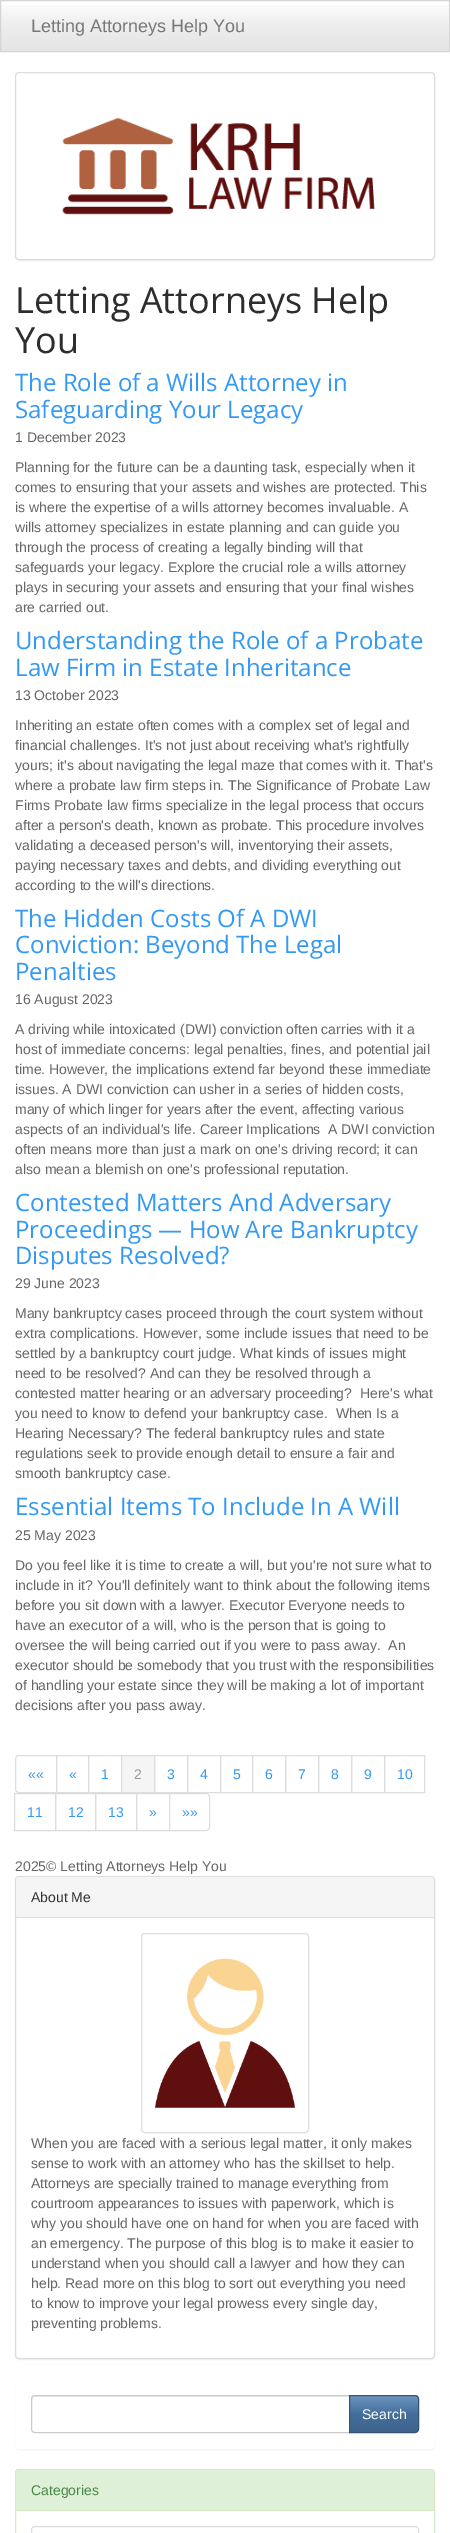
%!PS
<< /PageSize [450 2533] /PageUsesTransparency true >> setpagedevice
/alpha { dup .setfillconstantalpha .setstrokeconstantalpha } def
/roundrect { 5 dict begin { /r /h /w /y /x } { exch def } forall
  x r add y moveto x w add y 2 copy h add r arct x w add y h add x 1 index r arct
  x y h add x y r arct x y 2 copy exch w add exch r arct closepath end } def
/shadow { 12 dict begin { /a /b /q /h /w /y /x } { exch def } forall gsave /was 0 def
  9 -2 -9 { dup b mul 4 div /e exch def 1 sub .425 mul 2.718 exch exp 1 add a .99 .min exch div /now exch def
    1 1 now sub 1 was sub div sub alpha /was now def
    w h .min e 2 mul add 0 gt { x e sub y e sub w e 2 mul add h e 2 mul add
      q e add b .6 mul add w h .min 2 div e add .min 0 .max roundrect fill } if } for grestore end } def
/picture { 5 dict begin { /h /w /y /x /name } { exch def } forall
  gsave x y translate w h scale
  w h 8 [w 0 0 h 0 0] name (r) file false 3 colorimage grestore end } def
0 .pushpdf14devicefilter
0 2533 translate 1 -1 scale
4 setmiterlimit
1 setgray
0 0 450 2533 rectfill
gsave newpath 1 5 moveto 449 5 lineto 449 51 lineto 1 51 lineto closepath clip newpath
<< /ShadingType 2 /ColorSpace /DeviceRGB /Coords [225 1 225 51] /Extend [true true] /Function << /FunctionType 3 /Domain [0 1] /Functions [<< /FunctionType 2 /Domain [0 1] /C0 [1 1 1] /C1 [0.933 0.933 0.933] /N 1 >> << /FunctionType 2 /Domain [0 1] /C0 [0.933 0.933 0.933] /C1 [0.894 0.894 0.894] /N 1 >>] /Bounds [0.5] /Encode [0 1 0 1] >> >> shfill grestore
0.835 setgray
0.5 0.5 449 51 rectstroke
/LiberationSans-Regular [18 0 0 -18 0 0] selectfont
0.467 setgray
31 32 moveto (Letting Attorneys Help You) show
0 setgray
15 73 420 188 4 0.5 0.05 shadow
1 setgray
15.5 72.5 419 187 3.5 roundrect gsave fill grestore
0.867 setgray
stroke
(img1.rgb) 62 117 313 98 picture
/OpenSans-Regular [36 0 0 -36 0 0] selectfont
0.176 setgray
15 313 moveto (Letting Attorneys Help) show
15 353 moveto (You) show
/OpenSans-Regular [24 0 0 -24 0 0] selectfont
0.2 0.6 0.953 setrgbcolor
15 391 moveto (The Role of a Wills Attorney in) show
15 418 moveto (Safeguarding Your Legacy) show
/LiberationSans-Regular [14 0 0 -14 0 0] selectfont
0.4 setgray
15 442 moveto (1 December 2023) show
15 472 moveto (Planning for the future can be a daunting task, especially when it) show
15 492 moveto (comes to ensuring that your assets and wishes are protected. This) show
15 512 moveto (is where the expertise of a wills attorney becomes invaluable. A) show
15 532 moveto (wills attorney specializes in estate planning and can guide you) show
15 552 moveto (through the process of creating a legally binding will that) show
15 572 moveto (safeguards your legacy. Explore the crucial role a wills attorney) show
15 592 moveto (plays in securing your assets and ensuring that your final wishes) show
15 612 moveto (are carried out.) show
/OpenSans-Regular [24 0 0 -24 0 0] selectfont
0.2 0.6 0.953 setrgbcolor
15 649 moveto (Understanding the Role of a Probate) show
15 676 moveto (Law Firm in Estate Inheritance) show
/LiberationSans-Regular [14 0 0 -14 0 0] selectfont
0.4 setgray
15 700 moveto (13 October 2023) show
15 730 moveto (Inheriting an estate often comes with a complex set of legal and) show
15 750 moveto (financial challenges. It's not just about receiving what's rightfully) show
15 770 moveto (yours; it's about navigating the legal maze that comes with it. That's) show
15 790 moveto (where a probate law firm steps in. The Significance of Probate Law) show
15 810 moveto (Firms Probate law firms specialize in the legal process that occurs) show
15 830 moveto (after a person's death, known as probate. This procedure involves) show
15 850 moveto (validating a deceased person's will, inventorying their assets,) show
15 870 moveto (paying necessary taxes and debts, and dividing everything out) show
15 890 moveto (according to the will's directions.) show
/OpenSans-Regular [24 0 0 -24 0 0] selectfont
0.2 0.6 0.953 setrgbcolor
15 927 moveto (The Hidden Costs Of A DWI) show
15 953 moveto (Conviction: Beyond The Legal) show
15 980 moveto (Penalties) show
/LiberationSans-Regular [14 0 0 -14 0 0] selectfont
0.4 setgray
15 1004 moveto (16 August 2023) show
15 1034 moveto (A driving while intoxicated \(DWI\) conviction often carries with it a) show
15 1054 moveto (host of immediate concerns: legal penalties, fines, and potential jail) show
15 1074 moveto (time. However, the implications extend far beyond these immediate) show
15 1094 moveto (issues. A DWI conviction can usher in a series of hidden costs,) show
15 1114 moveto (many of which linger for years after the event, affecting various) show
15 1134 moveto (aspects of an individual's life. Career Implications  A DWI conviction) show
15 1154 moveto (often means more than just a mark on one's driving record; it can) show
15 1174 moveto (also mean a blemish on one's professional reputation.) show
/OpenSans-Regular [24 0 0 -24 0 0] selectfont
0.2 0.6 0.953 setrgbcolor
15 1211 moveto (Contested Matters And Adversary) show
15 1238 moveto (Proceedings — How Are Bankruptcy) show
15 1264 moveto (Disputes Resolved?) show
/LiberationSans-Regular [14 0 0 -14 0 0] selectfont
0.4 setgray
15 1288 moveto (29 June 2023) show
15 1318 moveto (Many bankruptcy cases proceed through the court system without) show
15 1338 moveto (extra complications. However, some include issues that need to be) show
15 1358 moveto (settled by a bankruptcy court judge. What kinds of issues might) show
15 1378 moveto (need to be resolved? And can they be resolved through a) show
15 1398 moveto (contested matter hearing or an adversary proceeding?  Here's what) show
15 1418 moveto (you need to know to defend your bankruptcy case.  When Is a) show
15 1438 moveto (Hearing Necessary? The federal bankruptcy rules and state) show
15 1458 moveto (regulations seek to provide enough detail to ensure a fair and) show
15 1478 moveto (smooth bankruptcy case.) show
/OpenSans-Regular [24 0 0 -24 0 0] selectfont
0.2 0.6 0.953 setrgbcolor
15 1515 moveto (Essential Items To Include In A Will) show
/LiberationSans-Regular [14 0 0 -14 0 0] selectfont
0.4 setgray
15 1540 moveto (25 May 2023) show
15 1570 moveto (Do you feel like it is time to create a will, but you're not sure what to) show
15 1590 moveto (include in it? You'll definitely want to think about the following items) show
15 1610 moveto (before you sit down with a lawyer. Executor Everyone needs to) show
15 1630 moveto (have an executor of a will, who is the person that is going to) show
15 1650 moveto (oversee the will being carried out if you were to pass away.  An) show
15 1670 moveto (executor should be somebody that you trust with the responsibilities) show
15 1690 moveto (of handling your estate since they will be making a lot of important) show
15 1710 moveto (decisions after you pass away.) show
0.867 setgray
newpath 19 1755.5 moveto 56.5 1755.5 lineto 56.5 1792.5 lineto 19 1792.5 lineto 17 1792.5 15.5 1791 15.5 1789 curveto 15.5 1759 lineto 15.5 1757 17 1755.5 19 1755.5 curveto closepath stroke
0.2 0.6 0.953 setrgbcolor
28 1779 moveto (««) show
0.867 setgray
56.5 1755.5 32 37 rectstroke
0.2 0.6 0.953 setrgbcolor
69 1779 moveto («) show
0.867 setgray
88.5 1755.5 33 37 rectstroke
0.2 0.6 0.953 setrgbcolor
101 1779 moveto (1) show
0.867 setgray
154.5 1755.5 33 37 rectstroke
0.961 setgray
newpath 121.5 1755.5 moveto 154.5 1755.5 lineto 154.5 1792.5 lineto 121.5 1792.5 lineto closepath gsave fill grestore
0.867 setgray
stroke
0.6 setgray
134 1779 moveto (2) show
0.2 0.6 0.953 setrgbcolor
167 1779 moveto (3) show
0.867 setgray
187.5 1755.5 33 37 rectstroke
0.2 0.6 0.953 setrgbcolor
200 1779 moveto (4) show
0.867 setgray
220.5 1755.5 32 37 rectstroke
0.2 0.6 0.953 setrgbcolor
233 1779 moveto (5) show
0.867 setgray
252.5 1755.5 33 37 rectstroke
0.2 0.6 0.953 setrgbcolor
265 1779 moveto (6) show
0.867 setgray
285.5 1755.5 33 37 rectstroke
0.2 0.6 0.953 setrgbcolor
298 1779 moveto (7) show
0.867 setgray
318.5 1755.5 33 37 rectstroke
0.2 0.6 0.953 setrgbcolor
331 1779 moveto (8) show
0.867 setgray
351.5 1755.5 33 37 rectstroke
0.2 0.6 0.953 setrgbcolor
364 1779 moveto (9) show
0.867 setgray
384.5 1755.5 40 37 rectstroke
0.2 0.6 0.953 setrgbcolor
397 1779 moveto (10) show
0.867 setgray
14.5 1793.5 41 37 rectstroke
0.2 0.6 0.953 setrgbcolor
27 1817 moveto (11) show
0.867 setgray
55.5 1793.5 40 37 rectstroke
0.2 0.6 0.953 setrgbcolor
68 1817 moveto (12) show
0.867 setgray
95.5 1793.5 41 37 rectstroke
0.2 0.6 0.953 setrgbcolor
108 1817 moveto (13) show
0.867 setgray
136.5 1793.5 33 37 rectstroke
0.2 0.6 0.953 setrgbcolor
149 1817 moveto (») show
1 setgray
newpath 169.5 1793.5 moveto 206 1793.5 lineto 208 1793.5 209.5 1795 209.5 1797 curveto 209.5 1827 lineto 209.5 1829 208 1830.5 206 1830.5 curveto 169.5 1830.5 lineto closepath gsave fill grestore
0.867 setgray
stroke
0.2 0.6 0.953 setrgbcolor
182 1817 moveto (»») show
0.4 setgray
15 1871 moveto (2025© Letting Attorneys Help You) show
0 setgray
15 1877 420 483 4 0.5 0.05 shadow
1 setgray
15.5 1876.5 419 482 3.5 roundrect gsave fill grestore
0.867 setgray
stroke
0.961 setgray
newpath 19 1877 moveto 431 1877 lineto 432.5 1877 434 1878.5 434 1880 curveto 434 1918 lineto 16 1918 lineto 16 1880 lineto 16 1878.5 17.5 1877 19 1877 curveto closepath fill
0.867 setgray
16 1917 418 1 rectfill
0.2 setgray
31 1902 moveto (About Me) show
0.867 setgray
141.5 1933.5 167 199 3.5 roundrect stroke
(img2.rgb) 155 1958 140 150 picture
0.4 setgray
31 2148 moveto (When you are faced with a serious legal matter, it only makes) show
31 2168 moveto (sense to work with an attorney who has the skillset to help.) show
31 2188 moveto (Attorneys are specially trained to manage everything from) show
31 2208 moveto (courtroom appearances to issues with paperwork, which is) show
31 2228 moveto (why you should have one on hand for when you are faced with) show
31 2248 moveto (an emergency. The purpose of this blog is to make it easier to) show
31 2268 moveto (understand when you should call a lawyer and how they can) show
31 2288 moveto (help. Read more on this blog to sort out everything you need) show
31 2308 moveto (to know to improve your legal prowess every single day,) show
31 2328 moveto (preventing problems.) show
0 setgray
15 2380 420 70 4 0.5 0.05 shadow
1 setgray
15 2379 420 70 4 roundrect fill
0.925 setgray
newpath 35 2397 moveto 349 2397 lineto 349 2396 lineto 35 2396 lineto 33 2396 32 2398 32 2400 curveto 32 2398 33 2397 35 2397 curveto closepath fill
0.8 setgray
newpath 35 2395.5 moveto 349.5 2395.5 lineto 349.5 2432.5 lineto 35 2432.5 lineto 33 2432.5 31.5 2431 31.5 2429 curveto 31.5 2399 lineto 31.5 2397 33 2395.5 35 2395.5 curveto closepath stroke
gsave newpath 350 2396 moveto 418 2396 lineto 418 2432 lineto 350 2432 lineto closepath clip newpath
<< /ShadingType 2 /ColorSpace /DeviceRGB /Coords [384 2396 384 2432] /Extend [true true] /Function << /FunctionType 3 /Domain [0 1] /Functions [<< /FunctionType 2 /Domain [0 1] /C0 [0.427 0.58 0.749] /C1 [0.267 0.431 0.608] /N 1 >> << /FunctionType 2 /Domain [0 1] /C0 [0.267 0.431 0.608] /C1 [0.243 0.392 0.553] /N 1 >>] /Bounds [0.5] /Encode [0 1 0 1] >> >> shfill grestore
0.204 0.333 0.471 setrgbcolor
newpath 349.5 2395.5 moveto 415 2395.5 lineto 417 2395.5 418.5 2397 418.5 2399 curveto 418.5 2429 lineto 418.5 2431 417 2432.5 415 2432.5 curveto 349.5 2432.5 lineto closepath stroke
1 setgray
362 2419 moveto (Search) show
0.839 0.914 0.776 setrgbcolor
15.5 2469.5 419 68 3.5 roundrect stroke
0.875 0.941 0.847 setrgbcolor
newpath 19 2470 moveto 431 2470 lineto 432.5 2470 434 2471.5 434 2473 curveto 434 2511 lineto 16 2511 lineto 16 2473 lineto 16 2471.5 17.5 2470 19 2470 curveto closepath fill
0.839 0.914 0.776 setrgbcolor
16 2510 418 1 rectfill
0.275 0.533 0.278 setrgbcolor
31 2495 moveto (Categories) show
0.867 setgray
newpath 35 2526.5 moveto 415 2526.5 lineto 417 2526.5 418.5 2528 418.5 2530 curveto 418.5 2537.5 lineto 31.5 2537.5 lineto 31.5 2530 lineto 31.5 2528 33 2526.5 35 2526.5 curveto closepath stroke
.poppdf14devicefilter showpage
